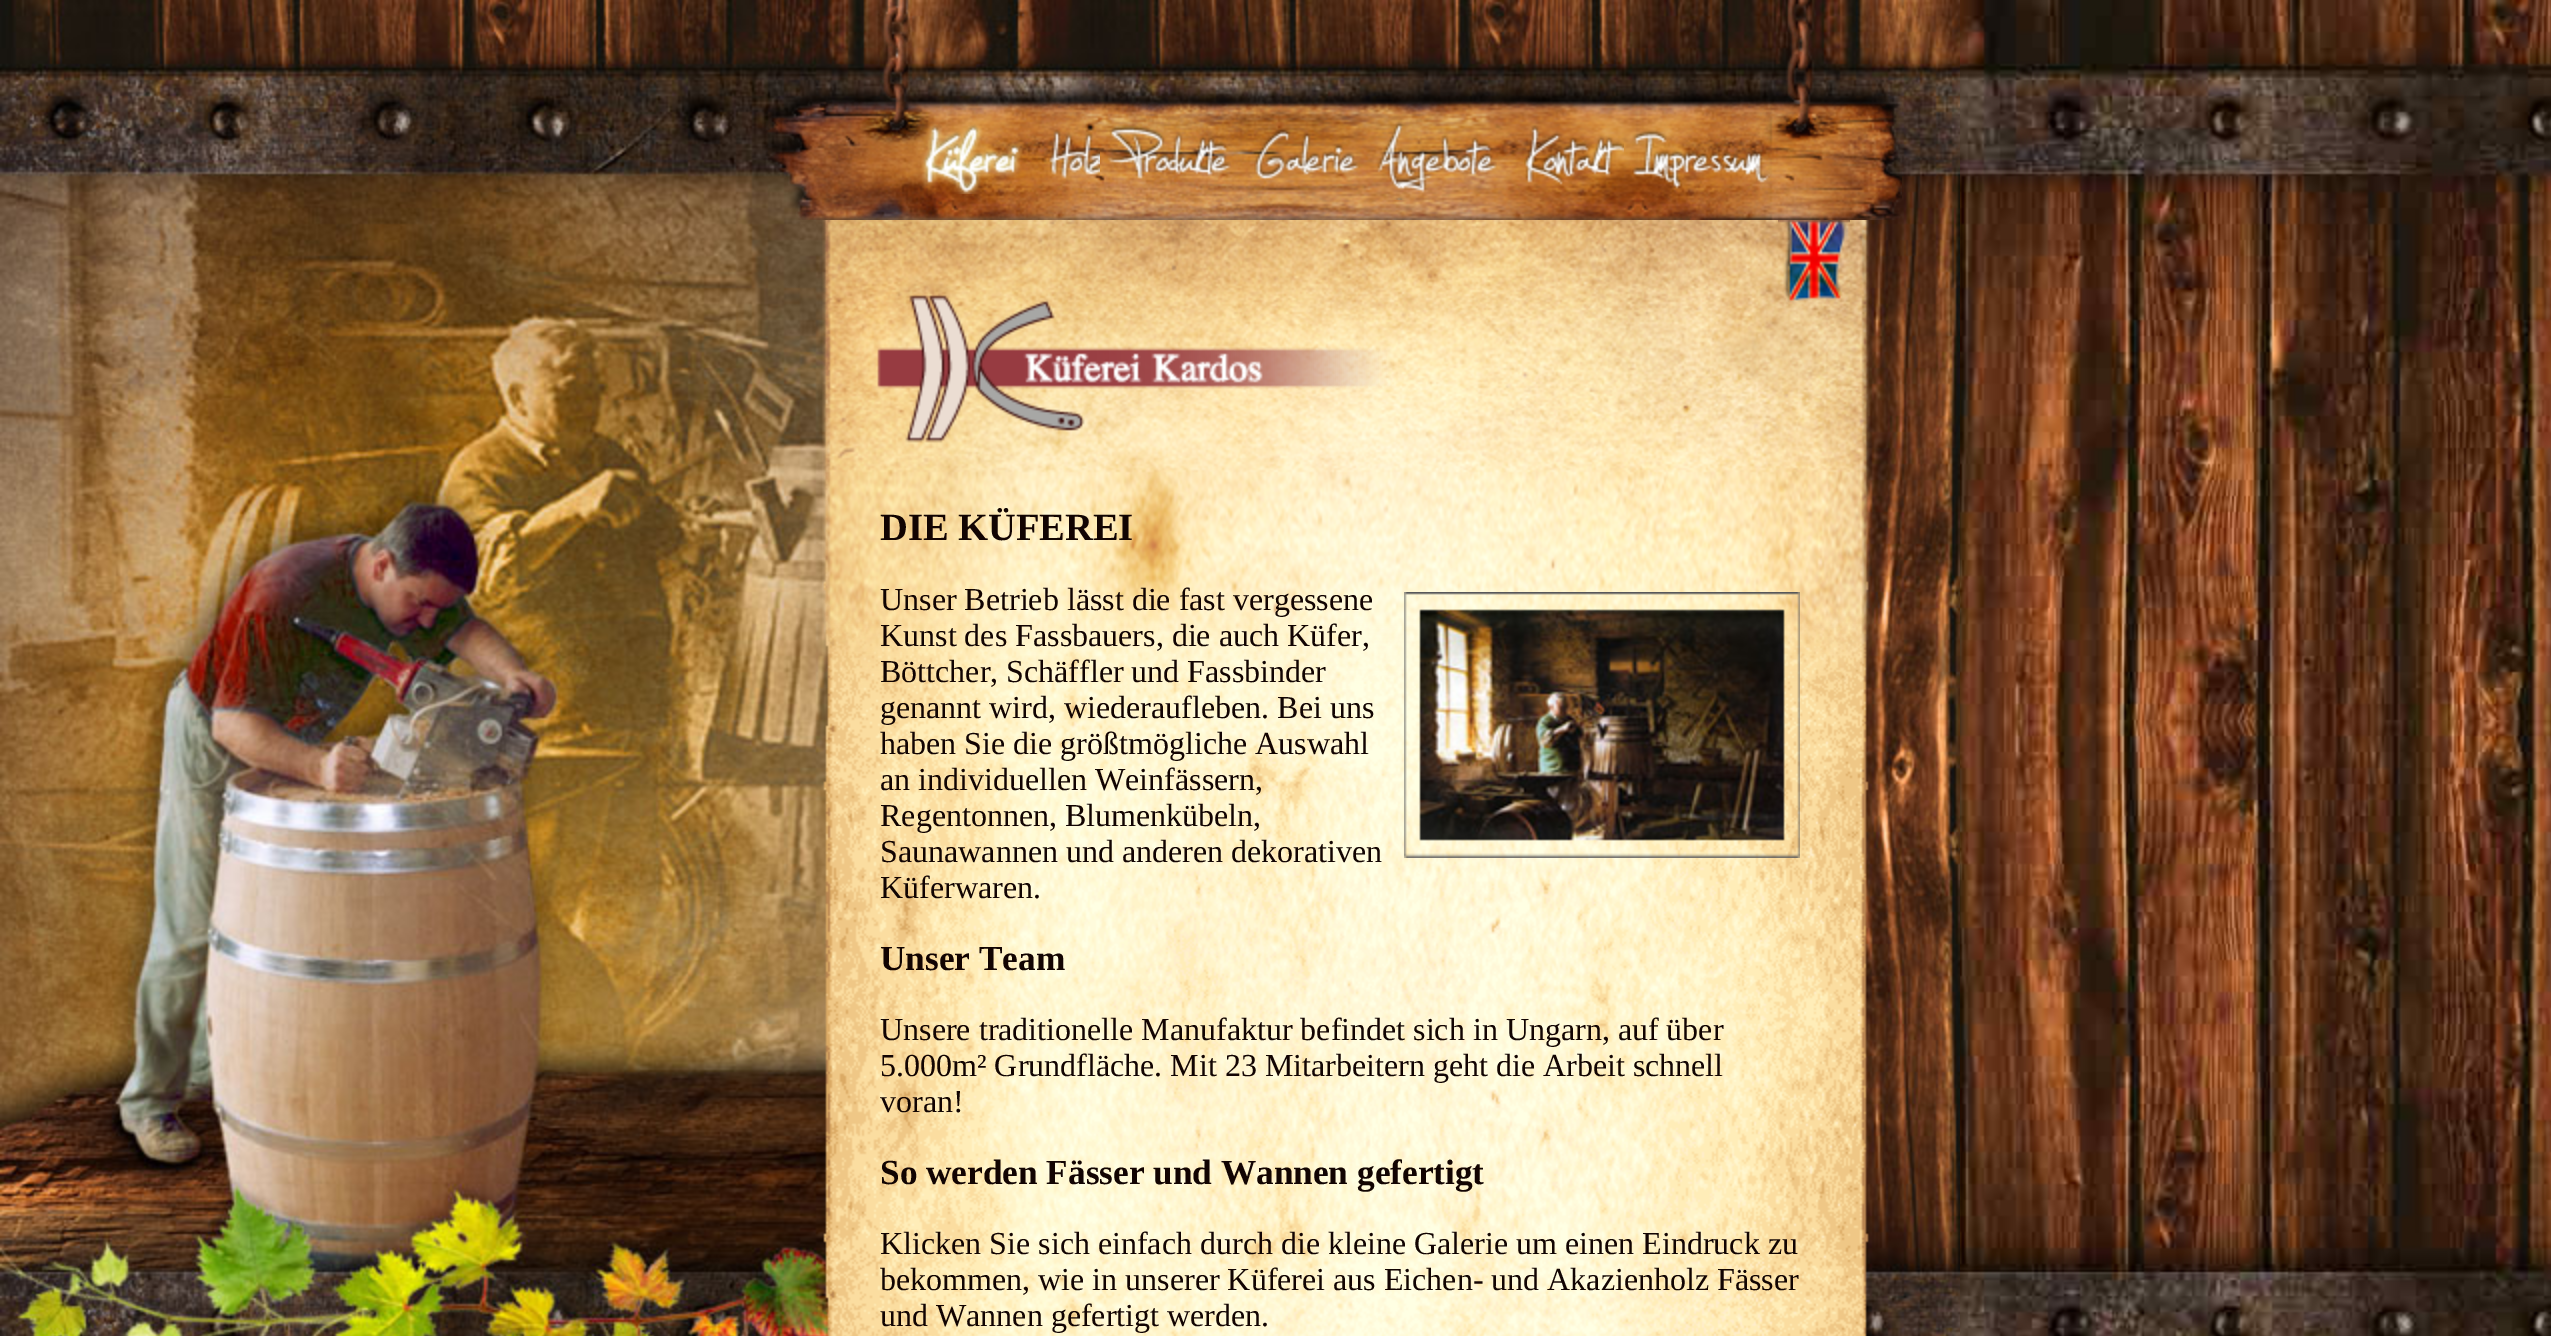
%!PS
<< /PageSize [2551 1336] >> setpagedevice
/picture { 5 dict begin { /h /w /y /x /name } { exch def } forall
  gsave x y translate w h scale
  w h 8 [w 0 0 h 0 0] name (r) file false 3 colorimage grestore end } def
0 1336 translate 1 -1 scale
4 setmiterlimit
1 setgray
0 0 2551 1336 rectfill
(img1.rgb) 1960 0 591 1336 picture
(img2.rgb) 0 0 1960 1336 picture
(img3.rgb) 762 0 1140 220 picture
(img4.rgb) 921 124 102 70 picture
(img5.rgb) 1048 129 52 50 picture
(img6.rgb) 1107 125 124 75 picture
(img7.rgb) 1254 128 106 53 picture
(img8.rgb) 1377 121 120 79 picture
(img9.rgb) 1524 125 100 75 picture
(img10.rgb) 1632 129 138 60 picture
(img11.rgb) 823 220 1046 1116 picture
(img12.rgb) 822 220 1049 468 picture
(img13.rgb) 877 295 516 148 picture
(img14.rgb) 1778 220 72 84 picture
/LiberationSerif-Bold [38.5 0 0 -38.5 0 0] selectfont
0.071 0.016 0.008 setrgbcolor
880 540 moveto (DIE KÜFEREI) show
/LiberationSerif-Regular [32 0 0 -32 0 0] selectfont
880 610 moveto (Unser Betrieb lässt die fast vergessene) show
(img15.rgb) 1404 592 396 266 picture
880 646 moveto (Kunst des Fassbauers, die auch Küfer,) show
880 682 moveto (Böttcher, Schäffler und Fassbinder) show
880 718 moveto (genannt wird, wiederaufleben. Bei uns) show
880 754 moveto (haben Sie die größtmögliche Auswahl) show
880 790 moveto (an individuellen Weinfässern,) show
880 826 moveto (Regentonnen, Blumenkübeln,) show
880 862 moveto (Saunawannen und anderen dekorativen) show
880 898 moveto (Küferwaren.) show
/LiberationSerif-Bold [35.25 0 0 -35.25 0 0] selectfont
880 970 moveto (Unser Team) show
/LiberationSerif-Regular [32 0 0 -32 0 0] selectfont
880 1040 moveto (Unsere traditionelle Manufaktur befindet sich in Ungarn, auf über) show
880 1076 moveto (5.000m² Grundfläche. Mit 23 Mitarbeitern geht die Arbeit schnell) show
880 1112 moveto (voran!) show
/LiberationSerif-Bold [35.25 0 0 -35.25 0 0] selectfont
880 1184 moveto (So werden Fässer und Wannen gefertigt) show
/LiberationSerif-Regular [32 0 0 -32 0 0] selectfont
880 1254 moveto (Klicken Sie sich einfach durch die kleine Galerie um einen Eindruck zu) show
880 1290 moveto (bekommen, wie in unserer Küferei aus Eichen- und Akazienholz Fässer) show
880 1326 moveto (und Wannen gefertigt werden.) show
showpage
